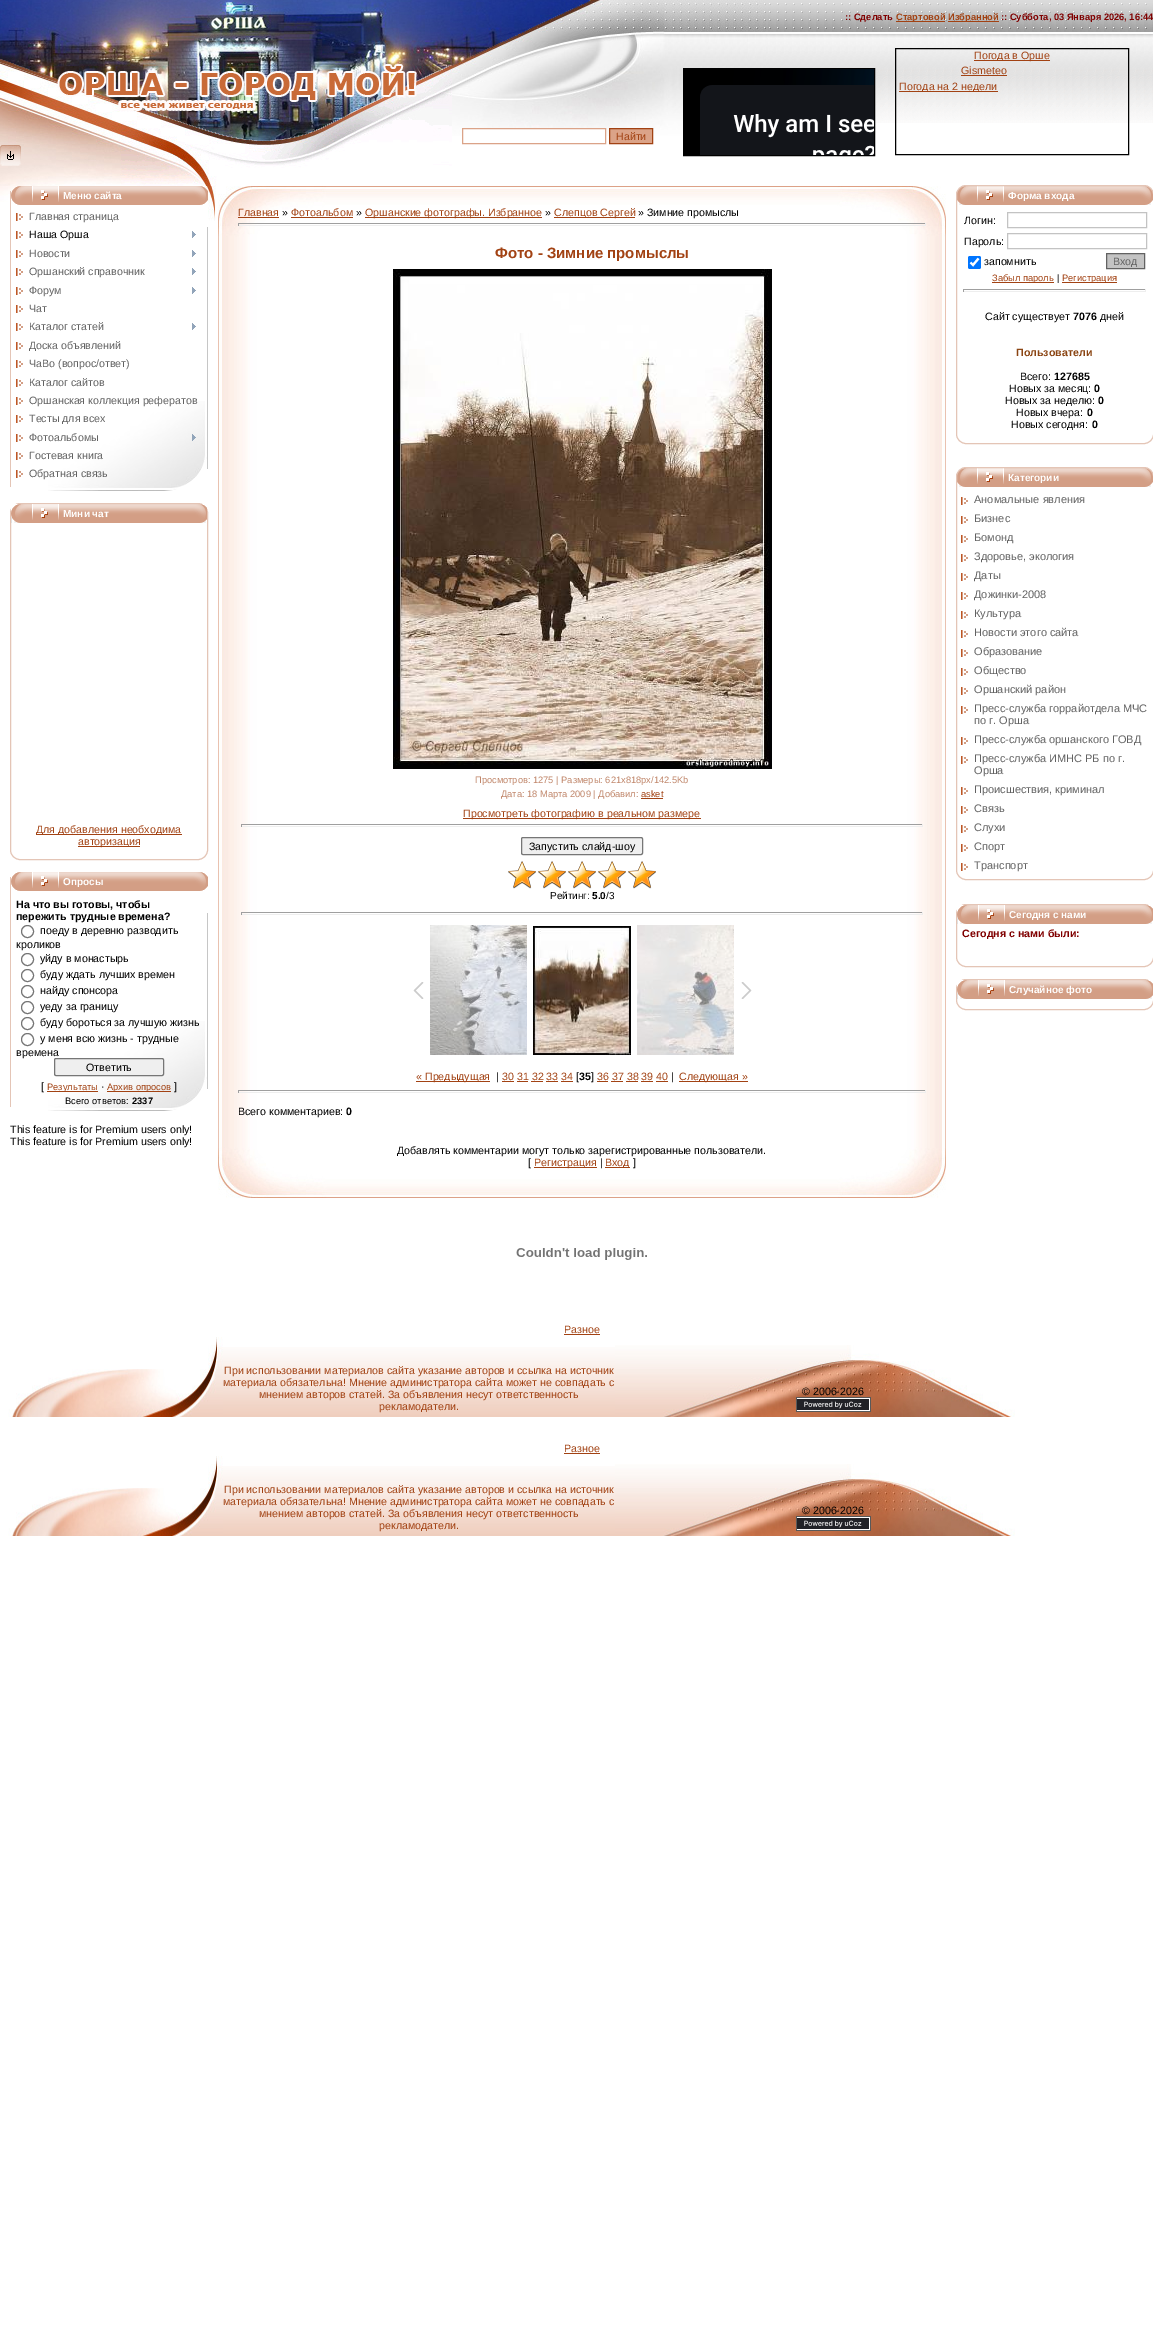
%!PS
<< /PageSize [1153 2339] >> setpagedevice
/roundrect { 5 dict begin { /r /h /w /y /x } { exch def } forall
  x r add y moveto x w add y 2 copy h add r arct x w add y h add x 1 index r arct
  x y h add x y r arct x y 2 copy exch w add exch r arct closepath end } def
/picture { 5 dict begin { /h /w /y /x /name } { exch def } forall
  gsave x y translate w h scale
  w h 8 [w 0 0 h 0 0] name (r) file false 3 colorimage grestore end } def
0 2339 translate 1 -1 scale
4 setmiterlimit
1 setgray
0 0 1153 2339 rectfill
(img1.rgb) 766 0 387 123 picture
(img2.rgb) 0 0 121 186 picture
(img3.rgb) 0 145 21 21 picture
(img4.rgb) 121 0 331 186 picture
(img5.rgb) 452 0 314 34 picture
/LiberationSans-Bold [9.3 0 0 -9.3 0 0] selectfont
0.502 0 0 setrgbcolor
845 20 moveto (:: Сделать) show
0.635 0.259 0.075 setrgbcolor
896 21 49 1 rectfill
896 20 moveto (Стартовой) show
948 21 51 1 rectfill
948 20 moveto (Избранной) show
0.502 0 0 setrgbcolor
1001 20 moveto (:: Суббота, 03 Января 2026, 16:44) show
(img6.rgb) 452 34 314 102 picture
1 setgray
463 129 142 7 rectfill
0.859 0.639 0.533 setrgbcolor
462.5 128.5 143 15 rectstroke
newpath 609.5 128.5 moveto 652.5 128.5 lineto 652.5 143.5 lineto 609.5 143.5 lineto closepath gsave fill grestore
0.635 0.259 0.075 setrgbcolor
stroke
/LiberationSans-Regular [10.65 0 0 -10.65 0 0] selectfont
616 140 moveto (Найти) show
0 setgray
683.5 68.5 191 87 rectstroke
(img7.rgb) 684 69 190 86 picture
895.5 48.5 233 106 rectstroke
0.635 0.259 0.075 setrgbcolor
974 60 76 1 rectfill
974 59 moveto (Погода в Орше) show
961 74 moveto (Gismeteo) show
961 75 46 1 rectfill
899 91 99 1 rectfill
899 90 moveto (Погода на 2 недели) show
(img8.rgb) 0 186 216 35 picture
0.894 0.773 0.714 setrgbcolor
10 191 1 296 rectfill
(img9.rgb) 11 186 197 19 picture
/LiberationSans-Bold [10 0 0 -10 0 0] selectfont
1 setgray
63 199 moveto (Меню сайта) show
(img10.rgb) 48 401 159 90 picture
0.776 setgray
207 227 1 242 rectfill
(img11.rgb) 16 213 7 8 picture
/LiberationSans-Regular [10.65 0 0 -10.65 0 0] selectfont
0.384 setgray
29 220 moveto (Главная страница) show
(img11.rgb) 16 231 7 8 picture
0 setgray
29 238 moveto (Наша Орша) show
(img12.rgb) 192 231 4 7 picture
(img11.rgb) 16 250 7 8 picture
0.384 setgray
29 257 moveto (Новости) show
(img12.rgb) 192 250 4 7 picture
(img11.rgb) 16 268 7 8 picture
29 275 moveto (Оршанский справочник) show
(img12.rgb) 192 268 4 7 picture
(img11.rgb) 16 287 7 8 picture
29 294 moveto (Форум) show
(img12.rgb) 192 287 4 7 picture
(img11.rgb) 16 305 7 8 picture
29 312 moveto (Чат) show
(img11.rgb) 16 323 7 8 picture
29 330 moveto (Каталог статей) show
(img12.rgb) 192 323 4 7 picture
(img11.rgb) 16 342 7 8 picture
29 349 moveto (Доска объявлений) show
(img11.rgb) 16 360 7 8 picture
29 367 moveto (ЧаВо \(вопрос/ответ\)) show
(img11.rgb) 16 379 7 8 picture
29 386 moveto (Каталог сайтов) show
(img11.rgb) 16 397 7 8 picture
29 404 moveto (Оршанская коллекция рефератов) show
(img11.rgb) 16 415 7 8 picture
29 422 moveto (Тесты для всех) show
(img11.rgb) 16 434 7 8 picture
29 441 moveto (Фотоальбомы) show
(img13.rgb) 192 434 4 7 picture
(img11.rgb) 16 452 7 8 picture
29 459 moveto (Гостевая книга) show
(img11.rgb) 16 470 7 8 picture
29 477 moveto (Обратная связь) show
0.894 0.773 0.714 setrgbcolor
10.5 503.5 197 356 9.5 roundrect stroke
(img14.rgb) 11 504 196 19 picture
/LiberationSans-Bold [10 0 0 -10 0 0] selectfont
1 setgray
63 517 moveto (Мини чат) show
0.635 0.259 0.075 setrgbcolor
36 834 146 1 rectfill
/LiberationSans-Regular [10.65 0 0 -10.65 0 0] selectfont
36 833 moveto (Для добавления необходима) show
78 846 62 1 rectfill
78 845 moveto (авторизация) show
0.894 0.773 0.714 setrgbcolor
10 877 1 230 rectfill
(img15.rgb) 11 872 197 19 picture
/LiberationSans-Bold [10 0 0 -10 0 0] selectfont
1 setgray
63 885 moveto (Опросы) show
(img10.rgb) 48 1021 159 90 picture
0.776 setgray
207 913 1 176 rectfill
/LiberationSans-Bold [10.65 0 0 -10.65 0 0] selectfont
0 setgray
16 908 moveto (На что вы готовы, чтобы) show
16 920 moveto (пережить трудные времена?) show
0.463 setgray
newpath 27.5 931.5 6 0 360 arc closepath stroke
/LiberationSans-Regular [10.65 0 0 -10.65 0 0] selectfont
0 setgray
40 934 moveto (поеду в деревню разводить) show
16 948 moveto (кроликов) show
0.463 setgray
newpath 27.5 959.5 6 0 360 arc closepath stroke
0 setgray
40 962 moveto (уйду в монастырь) show
0.463 setgray
newpath 27.5 975.5 6 0 360 arc closepath stroke
0 setgray
40 978 moveto (буду ждать лучших времен) show
0.463 setgray
newpath 27.5 991.5 6 0 360 arc closepath stroke
0 setgray
40 994 moveto (найду спонсора) show
0.463 setgray
newpath 27.5 1007.5 6 0 360 arc closepath stroke
0 setgray
40 1010 moveto (уеду за границу) show
0.463 setgray
newpath 27.5 1023.5 6 0 360 arc closepath stroke
0 setgray
40 1026 moveto (буду бороться за лучшую жизнь) show
0.463 setgray
newpath 27.5 1039.5 6 0 360 arc closepath stroke
0 setgray
40 1042 moveto (у меня всю жизнь - трудные) show
16 1056 moveto (времена) show
0.937 setgray
54.5 1058.5 109 17 1.5 roundrect gsave fill grestore
0.463 setgray
stroke
0 setgray
86 1071 moveto (Ответить) show
41 1090 moveto ([) show
0.635 0.259 0.075 setrgbcolor
47 1091 51 1 rectfill
/LiberationSans-Regular [9.3 0 0 -9.3 0 0] selectfont
47 1090 moveto (Результаты) show
/LiberationSans-Regular [10.65 0 0 -10.65 0 0] selectfont
0 setgray
101 1090 moveto (·) show
0.635 0.259 0.075 setrgbcolor
107 1091 64 1 rectfill
/LiberationSans-Regular [9.3 0 0 -9.3 0 0] selectfont
107 1090 moveto (Архив опросов) show
/LiberationSans-Regular [10.65 0 0 -10.65 0 0] selectfont
0 setgray
174 1090 moveto (]) show
/LiberationSans-Regular [9.3 0 0 -9.3 0 0] selectfont
65 1104 moveto (Всего ответов:) show
/LiberationSans-Bold [9.3 0 0 -9.3 0 0] selectfont
132 1104 moveto (2337) show
/LiberationSans-Regular [10.65 0 0 -10.65 0 0] selectfont
10 1133 moveto (This feature is for Premium users only!) show
10 1145 moveto (This feature is for Premium users only!) show
(img16.rgb) 327 237 91 336 picture
(img17.rgb) 218 186 728 1012 picture
0.635 0.259 0.075 setrgbcolor
238 216 moveto (Главная) show
238 217 41 1 rectfill
0 setgray
282 216 moveto (») show
0.635 0.259 0.075 setrgbcolor
291 216 moveto (Фотоальбом) show
291 217 62 1 rectfill
0 setgray
356 216 moveto (») show
0.635 0.259 0.075 setrgbcolor
365 217 177 1 rectfill
365 216 moveto (Оршанские фотографы. Избранное) show
0 setgray
545 216 moveto (») show
0.635 0.259 0.075 setrgbcolor
554 217 81 1 rectfill
554 216 moveto (Слепцов Сергей) show
0 setgray
638 216 moveto (» Зимние промыслы) show
0.624 setgray
238 223 688 1 rectfill
0.933 setgray
925 223 1 3 rectfill
238 225 688 1 rectfill
0.624 setgray
238 223 1 3 rectfill
/LiberationSans-Bold [15 0 0 -15 0 0] selectfont
0.635 0.259 0.075 setrgbcolor
495 258 moveto (Фото - Зимние промыслы) show
(img18.rgb) 393 269 379 500 picture
/LiberationSans-Regular [9.3 0 0 -9.3 0 0] selectfont
0.757 0.529 0.42 setrgbcolor
475 783 moveto (Просмотров: 1275 | Размеры: 621x818px/142.5Kb) show
501 797 moveto (Дата: 18 Марта 2009 | Добавил:) show
0.635 0.259 0.075 setrgbcolor
641 797 moveto (asket) show
641 798 22 1 rectfill
463 818 238 1 rectfill
/LiberationSans-Regular [10.65 0 0 -10.65 0 0] selectfont
463 817 moveto (Просмотреть фотографию в реальном размере) show
0.624 setgray
241 824 682 1 rectfill
0.933 setgray
922 824 1 3 rectfill
241 826 682 1 rectfill
0.624 setgray
241 824 1 3 rectfill
0.937 setgray
521.5 837.5 121 17 1.5 roundrect gsave fill grestore
0.463 setgray
stroke
0 setgray
529 850 moveto (Запустить слайд-шоу) show
(img19.rgb) 508 861 148 28 picture
(img20.rgb) 508 861 148 28 picture
/LiberationSans-Regular [10 0 0 -10 0 0] selectfont
550 899 moveto (Рейтинг:) show
/LiberationSans-Bold [10 0 0 -10 0 0] selectfont
592 899 moveto (5.0) show
/LiberationSans-Regular [10 0 0 -10 0 0] selectfont
606 899 moveto (/3) show
0.624 setgray
241 912 682 1 rectfill
0.933 setgray
922 912 1 3 rectfill
241 914 682 1 rectfill
0.624 setgray
241 912 1 3 rectfill
(img21.rgb) 413 982 11 17 picture
(img22.rgb) 430 925 97 130 picture
(img23.rgb) 533 926 98 129 picture
(img24.rgb) 637 925 97 130 picture
(img25.rgb) 741 982 11 17 picture
0.635 0.259 0.075 setrgbcolor
416 1081 74 1 rectfill
/LiberationSans-Regular [10.65 0 0 -10.65 0 0] selectfont
416 1080 moveto (« Предыдущая) show
0 setgray
496 1080 moveto (|) show
0.635 0.259 0.075 setrgbcolor
502 1080 moveto (30 31 32 33 34) show
502 1081 12 1 rectfill
0 setgray
576 1080 moveto ([) show
/LiberationSans-Bold [10.65 0 0 -10.65 0 0] selectfont
579 1080 moveto (35) show
/LiberationSans-Regular [10.65 0 0 -10.65 0 0] selectfont
591 1080 moveto (]) show
0.635 0.259 0.075 setrgbcolor
597 1080 moveto (36 37 38 39 40) show
597 1081 11 1 rectfill
0 setgray
671 1080 moveto (|) show
0.635 0.259 0.075 setrgbcolor
679 1081 69 1 rectfill
679 1080 moveto (Следующая ») show
517 1081 11 1 rectfill
531 1081 12 1 rectfill
546 1081 12 1 rectfill
561 1081 12 1 rectfill
611 1081 12 1 rectfill
626 1081 12 1 rectfill
641 1081 12 1 rectfill
656 1081 12 1 rectfill
0.624 setgray
238 1090 688 1 rectfill
0.933 setgray
925 1090 1 3 rectfill
238 1092 688 1 rectfill
0.624 setgray
238 1090 1 3 rectfill
0 setgray
238 1115 moveto (Всего комментариев:) show
/LiberationSans-Bold [10.65 0 0 -10.65 0 0] selectfont
346 1115 moveto (0) show
/LiberationSans-Regular [10.65 0 0 -10.65 0 0] selectfont
397 1154 moveto (Добавлять комментарии могут только зарегистрированные пользователи.) show
528 1166 moveto ([) show
0.635 0.259 0.075 setrgbcolor
534 1167 63 1 rectfill
534 1166 moveto (Регистрация) show
0 setgray
600 1166 moveto (|) show
0.635 0.259 0.075 setrgbcolor
605 1167 25 1 rectfill
605 1166 moveto (Вход) show
0 setgray
633 1166 moveto (]) show
(img26.rgb) 516 1248 131 12 picture
(img27.rgb) 956 186 197 19 picture
0.894 0.773 0.714 setrgbcolor
956.5 185.5 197 258 9.5 roundrect stroke
/LiberationSans-Bold [10 0 0 -10 0 0] selectfont
1 setgray
1008 199 moveto (Форма входа) show
/LiberationSans-Regular [10.65 0 0 -10.65 0 0] selectfont
0 setgray
964 224 moveto (Логин:) show
0.765 setgray
1007.5 212.5 139 15 rectstroke
0 setgray
964 245 moveto (Пароль:) show
0.765 setgray
1007.5 233.5 139 15 rectstroke
0 0.459 1 setrgbcolor
968 256 13 13 2 roundrect fill
1 setgray
2.1 setlinewidth
newpath 970.5 262.5 moveto 973 265 lineto 978.5 258.5 lineto stroke
0 setgray
984 265 moveto (запомнить) show
0.765 setgray
newpath 1106.5 253.5 moveto 1144.5 253.5 lineto 1144.5 268.5 lineto 1106.5 268.5 lineto closepath gsave fill grestore
0.384 setgray
1 setlinewidth
stroke
1113 265 moveto (Вход) show
0.635 0.259 0.075 setrgbcolor
992 282 62 1 rectfill
/LiberationSans-Regular [9.3 0 0 -9.3 0 0] selectfont
992 281 moveto (Забыл пароль) show
0 setgray
1057 281 moveto (|) show
0.635 0.259 0.075 setrgbcolor
1062 282 55 1 rectfill
1062 281 moveto (Регистрация) show
0.624 setgray
963 289 183 1 rectfill
0.933 setgray
1145 289 1 3 rectfill
963 291 183 1 rectfill
0.624 setgray
963 289 1 3 rectfill
/LiberationSans-Regular [10.65 0 0 -10.65 0 0] selectfont
0 setgray
985 320 moveto (Сайт существует) show
/LiberationSans-Bold [10.65 0 0 -10.65 0 0] selectfont
1073 320 moveto (7076) show
/LiberationSans-Regular [10.65 0 0 -10.65 0 0] selectfont
1100 320 moveto (дней) show
/LiberationSans-Bold [10.65 0 0 -10.65 0 0] selectfont
0.545 0.271 0.075 setrgbcolor
1016 356 moveto (Пользователи) show
/LiberationSans-Regular [10.65 0 0 -10.65 0 0] selectfont
0 setgray
1020 380 moveto (Всего:) show
/LiberationSans-Bold [10.65 0 0 -10.65 0 0] selectfont
1054 380 moveto (127685) show
/LiberationSans-Regular [10.65 0 0 -10.65 0 0] selectfont
1009 392 moveto (Новых за месяц:) show
/LiberationSans-Bold [10.65 0 0 -10.65 0 0] selectfont
1094 392 moveto (0) show
/LiberationSans-Regular [10.65 0 0 -10.65 0 0] selectfont
1005 404 moveto (Новых за неделю:) show
/LiberationSans-Bold [10.65 0 0 -10.65 0 0] selectfont
1098 404 moveto (0) show
/LiberationSans-Regular [10.65 0 0 -10.65 0 0] selectfont
1016 416 moveto (Новых вчера:) show
/LiberationSans-Bold [10.65 0 0 -10.65 0 0] selectfont
1087 416 moveto (0) show
/LiberationSans-Regular [10.65 0 0 -10.65 0 0] selectfont
1011 428 moveto (Новых сегодня:) show
/LiberationSans-Bold [10.65 0 0 -10.65 0 0] selectfont
1092 428 moveto (0) show
(img27.rgb) 956 468 197 19 picture
0.894 0.773 0.714 setrgbcolor
956.5 467.5 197 412 9.5 roundrect stroke
/LiberationSans-Bold [10 0 0 -10 0 0] selectfont
1 setgray
1008 481 moveto (Категории) show
(img11.rgb) 961 497 7 8 picture
/LiberationSans-Regular [11 0 0 -11 0 0] selectfont
0.384 setgray
974 503 moveto (Аномальные явления) show
(img11.rgb) 961 516 7 8 picture
974 522 moveto (Бизнес) show
(img11.rgb) 961 535 7 8 picture
974 541 moveto (Бомонд) show
(img11.rgb) 961 554 7 8 picture
974 560 moveto (Здоровье, экология) show
(img11.rgb) 961 573 7 8 picture
974 579 moveto (Даты) show
(img11.rgb) 961 592 7 8 picture
974 598 moveto (Дожинки-2008) show
(img11.rgb) 961 611 7 8 picture
974 617 moveto (Культура) show
(img11.rgb) 961 630 7 8 picture
974 636 moveto (Новости этого сайта) show
(img11.rgb) 961 649 7 8 picture
974 655 moveto (Образование) show
(img11.rgb) 961 668 7 8 picture
974 674 moveto (Общество) show
(img11.rgb) 961 687 7 8 picture
974 693 moveto (Оршанский район) show
(img11.rgb) 961 706 7 8 picture
974 712 moveto (Пресс-служба горрайотдела МЧС) show
974 724 moveto (по г. Орша) show
(img11.rgb) 961 737 7 8 picture
974 743 moveto (Пресс-служба оршанского ГОВД) show
(img11.rgb) 961 756 7 8 picture
974 762 moveto (Пресс-служба ИМНС РБ по г.) show
974 774 moveto (Орша) show
(img11.rgb) 961 787 7 8 picture
974 793 moveto (Проиcшествия, криминал) show
(img11.rgb) 961 806 7 8 picture
974 812 moveto (Связь) show
(img11.rgb) 961 825 7 8 picture
974 831 moveto (Слухи) show
(img11.rgb) 961 844 7 8 picture
974 850 moveto (Спорт) show
(img11.rgb) 961 863 7 8 picture
974 869 moveto (Транспорт) show
0.894 0.773 0.714 setrgbcolor
956.5 904.5 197 62 9.5 roundrect stroke
(img14.rgb) 957 905 196 19 picture
/LiberationSans-Bold [10 0 0 -10 0 0] selectfont
1 setgray
1009 918 moveto (Сегодня с нами) show
/LiberationSans-Bold [10.65 0 0 -10.65 0 0] selectfont
0.502 0 0 setrgbcolor
962 937 moveto (Сегодня с нами были:) show
0.894 0.773 0.714 setrgbcolor
956.5 979.5 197 30 9.5 roundrect stroke
(img14.rgb) 957 980 196 19 picture
/LiberationSans-Bold [10 0 0 -10 0 0] selectfont
1 setgray
1009 993 moveto (Случайное фото) show
/LiberationSans-Regular [10.65 0 0 -10.65 0 0] selectfont
0.635 0.259 0.075 setrgbcolor
564 1333 moveto (Разное) show
564 1334 36 1 rectfill
(img28.rgb) 8 1337 215 80 picture
(img29.rgb) 223 1347 392 70 picture
224 1374 moveto (При использовании материалов сайта указание авторов и ссылка на источник) show
223 1386 moveto (материала обязательна! Мнение администратора сайта может не совпадать с) show
259 1398 moveto (мнением авторов статей. За объявления несут ответственность) show
379 1410 moveto (рекламодатели.) show
(img30.rgb) 615 1345 400 72 picture
0 setgray
802 1395 moveto (© 2006-2026) show
(img31.rgb) 796 1397 75 15 picture
0.635 0.259 0.075 setrgbcolor
564 1452 moveto (Разное) show
564 1453 36 1 rectfill
(img28.rgb) 8 1456 215 80 picture
(img29.rgb) 223 1466 392 70 picture
224 1493 moveto (При использовании материалов сайта указание авторов и ссылка на источник) show
223 1505 moveto (материала обязательна! Мнение администратора сайта может не совпадать с) show
259 1517 moveto (мнением авторов статей. За объявления несут ответственность) show
379 1529 moveto (рекламодатели.) show
(img30.rgb) 615 1464 400 72 picture
0 setgray
802 1514 moveto (© 2006-2026) show
(img31.rgb) 796 1516 75 15 picture
showpage
